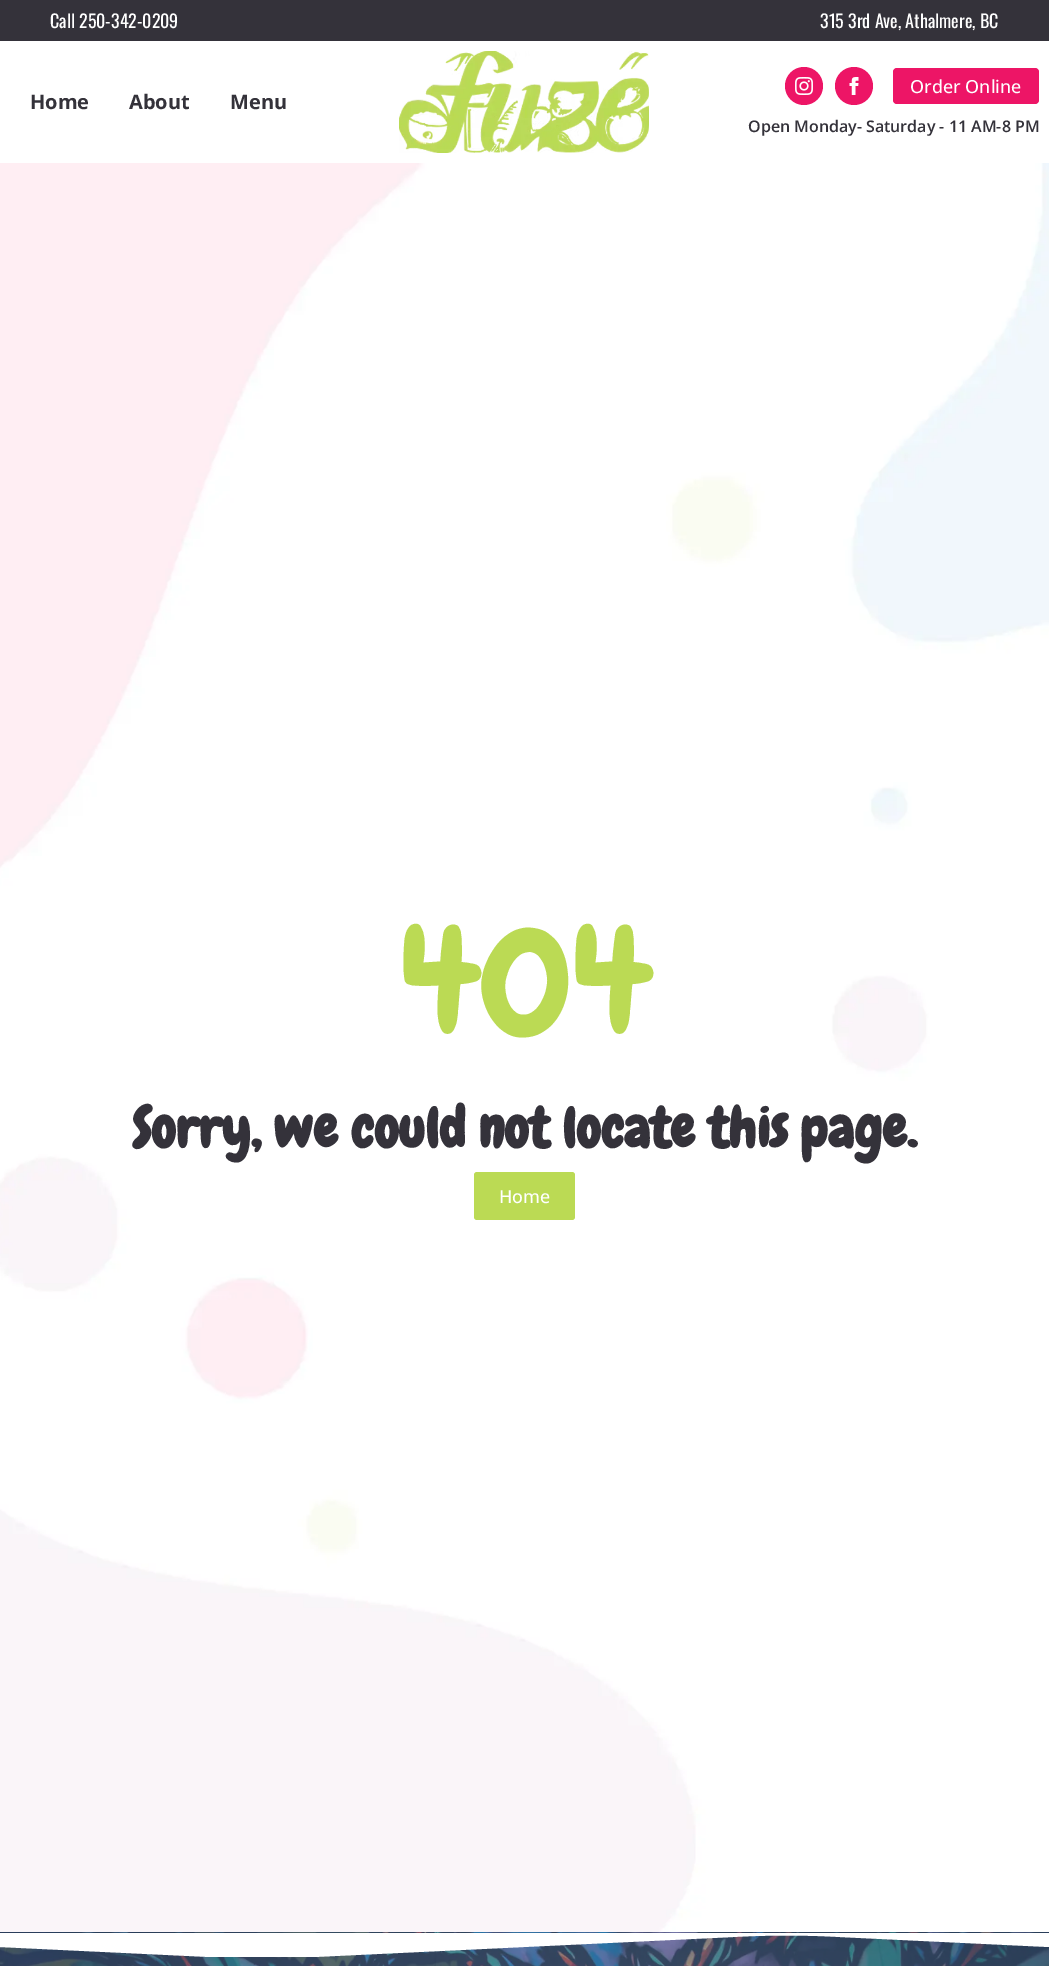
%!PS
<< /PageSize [1049 1966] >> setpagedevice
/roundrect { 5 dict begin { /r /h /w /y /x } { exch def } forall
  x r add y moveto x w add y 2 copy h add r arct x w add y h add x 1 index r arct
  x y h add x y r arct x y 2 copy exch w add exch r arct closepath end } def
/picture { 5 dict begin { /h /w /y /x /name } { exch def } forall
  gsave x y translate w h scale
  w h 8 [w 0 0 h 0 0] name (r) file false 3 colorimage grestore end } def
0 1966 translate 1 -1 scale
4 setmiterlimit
1 setgray
0 0 1049 1966 rectfill
0.204 0.196 0.227 setrgbcolor
0 0 1049 41 rectfill
/Oswald-Regular [18 0 0 -18 0 0] selectfont
1 setgray
50 28 moveto (Call 250-342-0209) show
820 28 moveto (315 3rd Ave, Athalmere, BC) show
/OpenSans-Bold [20 0 0 -20 0 0] selectfont
0.204 0.196 0.227 setrgbcolor
30 109 moveto (Home) show
129 109 moveto (About) show
230 109 moveto (Menu) show
(img1.rgb) 399 51 250 102 picture
0.929 0.082 0.4 setrgbcolor
newpath 804 86 19 0 360 arc closepath fill
(img2.rgb) 795 77 18 18 picture
newpath 854 86 19 0 360 arc closepath fill
(img3.rgb) 849 77 10 18 picture
893 68 146 36 4 roundrect fill
/OpenSans-Medium [18 0 0 -18 0 0] selectfont
1 setgray
910 93 moveto (Order Online) show
/OpenSans-SemiBold [16 0 0 -16 0 0] selectfont
0.204 0.196 0.227 setrgbcolor
748 132 moveto (Open Monday- Saturday - 11 AM-8 PM) show
(img4.rgb) 0 163 1049 1769 picture
/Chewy-Regular [150 0 0 -150 0 0] selectfont
0.733 0.855 0.329 setrgbcolor
399 1032 moveto (404) show
/Chewy-Bold [54.9 0 0 -54.9 0 0] selectfont
0.204 0.196 0.227 setrgbcolor
132 1147 moveto (Sorry, we could not locate this page.) show
0.733 0.855 0.329 setrgbcolor
474 1172 101 48 3 roundrect fill
/OpenSans-Medium [18 0 0 -18 0 0] selectfont
1 setgray
499 1203 moveto (Home) show
(img5.rgb) 0 1932 1049 34 picture
gsave
0 1932 1049 25 rectclip
newpath 1049 1947 moveto 840 1937 lineto 807 1935 766 1935 733 1937 curveto 314 1957 lineto 282 1958 242 1958 210 1957 curveto 0 1947 lineto 0 1933 lineto 1049 1933 lineto closepath fill
grestore
showpage
